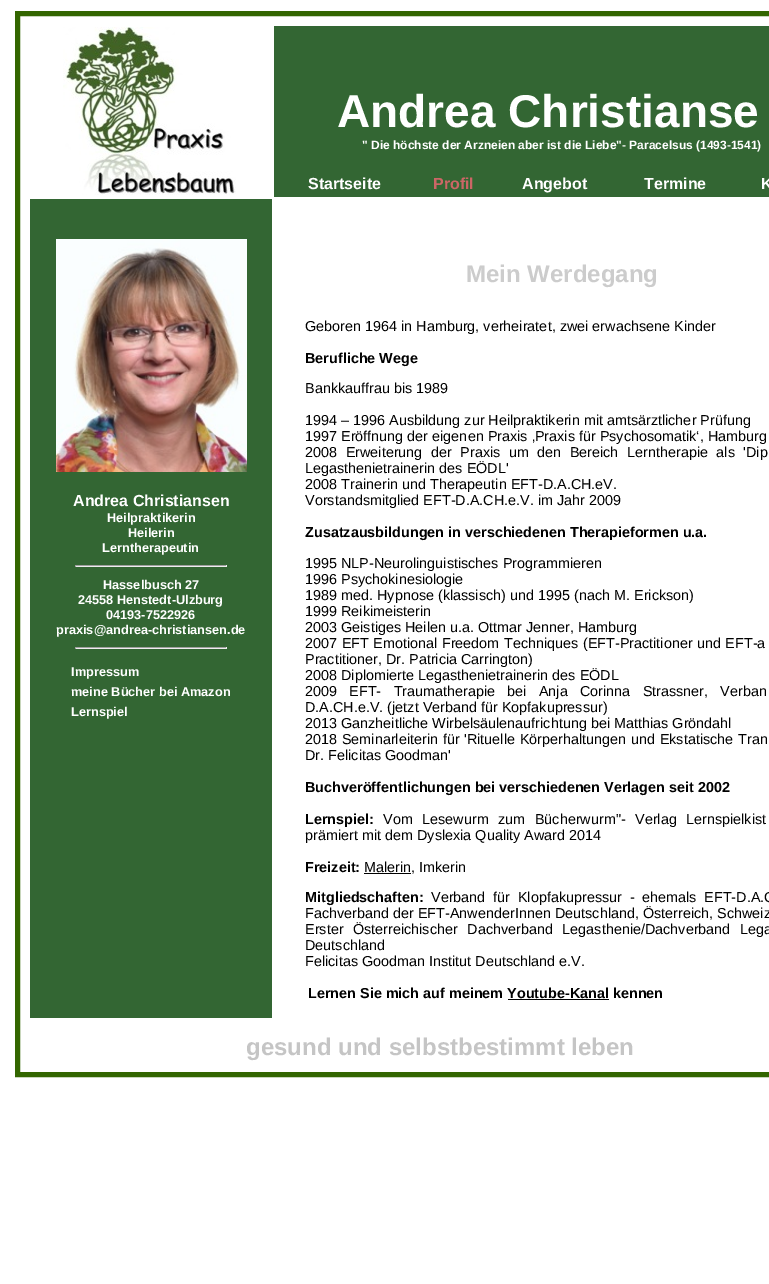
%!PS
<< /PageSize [769 1284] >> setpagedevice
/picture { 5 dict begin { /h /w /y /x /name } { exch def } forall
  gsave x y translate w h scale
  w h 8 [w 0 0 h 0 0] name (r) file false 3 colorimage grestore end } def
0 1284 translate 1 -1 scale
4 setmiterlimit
1 setgray
0 0 769 1284 rectfill
0.2 0.4 0 setrgbcolor
5 setlinewidth
17.5 13.5 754 1061 rectstroke
(img1.rgb) 63 27 173 168 picture
0.2 0.4 0.2 setrgbcolor
274 26 495 171 rectfill
/LiberationSans-Bold [46 0 0 -46 0 0] selectfont
1 setgray
337 127 moveto (Andrea Christianse) show
/LiberationSans-Bold [12 0 0 -12 0 0] selectfont
362 149 moveto (" Die höchste der Arzneien aber ist die Liebe"- Paracelsus \(1493-1541\)) show
/LiberationSans-Bold [16 0 0 -16 0 0] selectfont
308 189 moveto (Startseite) show
0.8 0.4 0.4 setrgbcolor
433 189 moveto (Profil) show
1 setgray
522 189 moveto (Angebot) show
644 189 moveto (Termine) show
761 189 moveto (K) show
0.2 0.4 0.2 setrgbcolor
30 199 242 819 rectfill
(img2.rgb) 56 239 191 233 picture
1 setgray
73 506 moveto (Andrea Christiansen) show
/LiberationSans-Bold [12.75 0 0 -12.75 0 0] selectfont
107 522 moveto (Heilpraktikerin) show
128 537 moveto (Heilerin) show
102 552 moveto (Lerntherapeutin) show
0.624 setgray
75 565 152 1 rectfill
0.933 setgray
226 565 1 2 rectfill
75 566 152 1 rectfill
0.624 setgray
75 565 1 2 rectfill
1 setgray
103 589 moveto (Hasselbusch 27) show
78 604 moveto (24558 Henstedt-Ulzburg) show
106 619 moveto (04193-7522926) show
56 634 moveto (praxis@andrea-christiansen.de) show
0.624 setgray
75 647 152 1 rectfill
0.933 setgray
226 647 1 2 rectfill
75 648 152 1 rectfill
0.624 setgray
75 647 1 2 rectfill
1 setgray
71 676 moveto (Impressum) show
71 696 moveto (meine Bücher bei Amazon) show
71 716 moveto (Lernspiel) show
/LiberationSans-Bold [24 0 0 -24 0 0] selectfont
0.8 setgray
466 282 moveto (Mein Werdegang) show
/LiberationSans-Regular [14.4 0 0 -14.4 0 0] selectfont
0 setgray
305 331 moveto (Geboren 1964 in Hamburg, verheiratet, zwei erwachsene Kinder) show
/LiberationSans-Bold [14.4 0 0 -14.4 0 0] selectfont
305 363 moveto (Berufliche Wege) show
/LiberationSans-Regular [14.4 0 0 -14.4 0 0] selectfont
305 393 moveto (Bankkauffrau bis 1989) show
305 425 moveto (1994 – 1996 Ausbildung zur Heilpraktikerin mit amtsärztlicher Prüfung) show
305 441 moveto (1997 Eröffnung der eigenen Praxis ‚Praxis für Psychosomatik‘, Hamburg) show
305 457 moveto 4.5 0 32 (2008 Erweiterung der Praxis um den Bereich Lerntherapie als 'Dip) widthshow
305 473 moveto (Legasthenietrainerin des EÖDL') show
305 489 moveto (2008 Trainerin und Therapeutin EFT-D.A.CH.eV.) show
305 505 moveto (Vorstandsmitglied EFT-D.A.CH.e.V. im Jahr 2009) show
/LiberationSans-Bold [14.4 0 0 -14.4 0 0] selectfont
305 537 moveto (Zusatzausbildungen in verschiedenen Therapieformen u.a.) show
/LiberationSans-Regular [14.4 0 0 -14.4 0 0] selectfont
305 568 moveto (1995 NLP-Neurolinguistisches Programmieren) show
305 584 moveto (1996 Psychokinesiologie) show
305 600 moveto (1989 med. Hypnose \(klassisch\) und 1995 \(nach M. Erickson\)) show
305 616 moveto (1999 Reikimeisterin) show
305 632 moveto (2003 Geistiges Heilen u.a. Ottmar Jenner, Hamburg) show
305 648 moveto 0.5 0 32 (2007 EFT Emotional Freedom Techniques \(EFT-Practitioner und EFT-a) widthshow
305 664 moveto (Practitioner, Dr. Patricia Carrington\)) show
305 680 moveto (2008 Diplomierte Legasthenietrainerin des EÖDL) show
305 696 moveto 8.25 0 32 (2009 EFT- Traumatherapie bei Anja Corinna Strassner, Verban) widthshow
305 712 moveto (D.A.CH.e.V. \(jetzt Verband für Kopfakupressur\)) show
305 728 moveto (2013 Ganzheitliche Wirbelsäulenaufrichtung bei Matthias Gröndahl) show
305 744 moveto 0.75 0 32 (2018 Seminarleiterin für 'Rituelle Körperhaltungen und Ekstatische Tran) widthshow
305 760 moveto (Dr. Felicitas Goodman') show
/LiberationSans-Bold [14.4 0 0 -14.4 0 0] selectfont
305 792 moveto (Buchveröffentlichungen bei verschiedenen Verlagen seit 2002) show
305 824 moveto (Lernspiel:) show
/LiberationSans-Regular [14.4 0 0 -14.4 0 0] selectfont
383 824 moveto 5.5 0 32 (Vom Lesewurm zum Bücherwurm"- Verlag Lernspielkist) widthshow
305 840 moveto (prämiert mit dem Dyslexia Quality Award 2014) show
/LiberationSans-Bold [14.4 0 0 -14.4 0 0] selectfont
305 872 moveto (Freizeit:) show
364 873 47 1 rectfill
/LiberationSans-Regular [14.4 0 0 -14.4 0 0] selectfont
364 872 moveto (Malerin, Imkerin) show
/LiberationSans-Bold [14.4 0 0 -14.4 0 0] selectfont
305 902 moveto (Mitgliedschaften:) show
/LiberationSans-Regular [14.4 0 0 -14.4 0 0] selectfont
431 902 moveto 3.75 0 32 (Verband für Klopfakupressur - ehemals EFT-D.A.C) widthshow
305 918 moveto (Fachverband der EFT-AnwenderInnen Deutschland, Österreich, Schweiz) show
305 934 moveto 5.5 0 32 (Erster Österreichischer Dachverband Legasthenie/Dachverband Lega) widthshow
305 950 moveto (Deutschland) show
305 966 moveto (Felicitas Goodman Institut Deutschland e.V.) show
/LiberationSans-Bold [14.4 0 0 -14.4 0 0] selectfont
308 998 moveto (Lernen Sie mich auf meinem Youtube-Kanal kennen) show
508 999 101 1 rectfill
/LiberationSans-Bold [24 0 0 -24 0 0] selectfont
0.773 setgray
246 1055 moveto (gesund und selbstbestimmt leben) show
showpage
